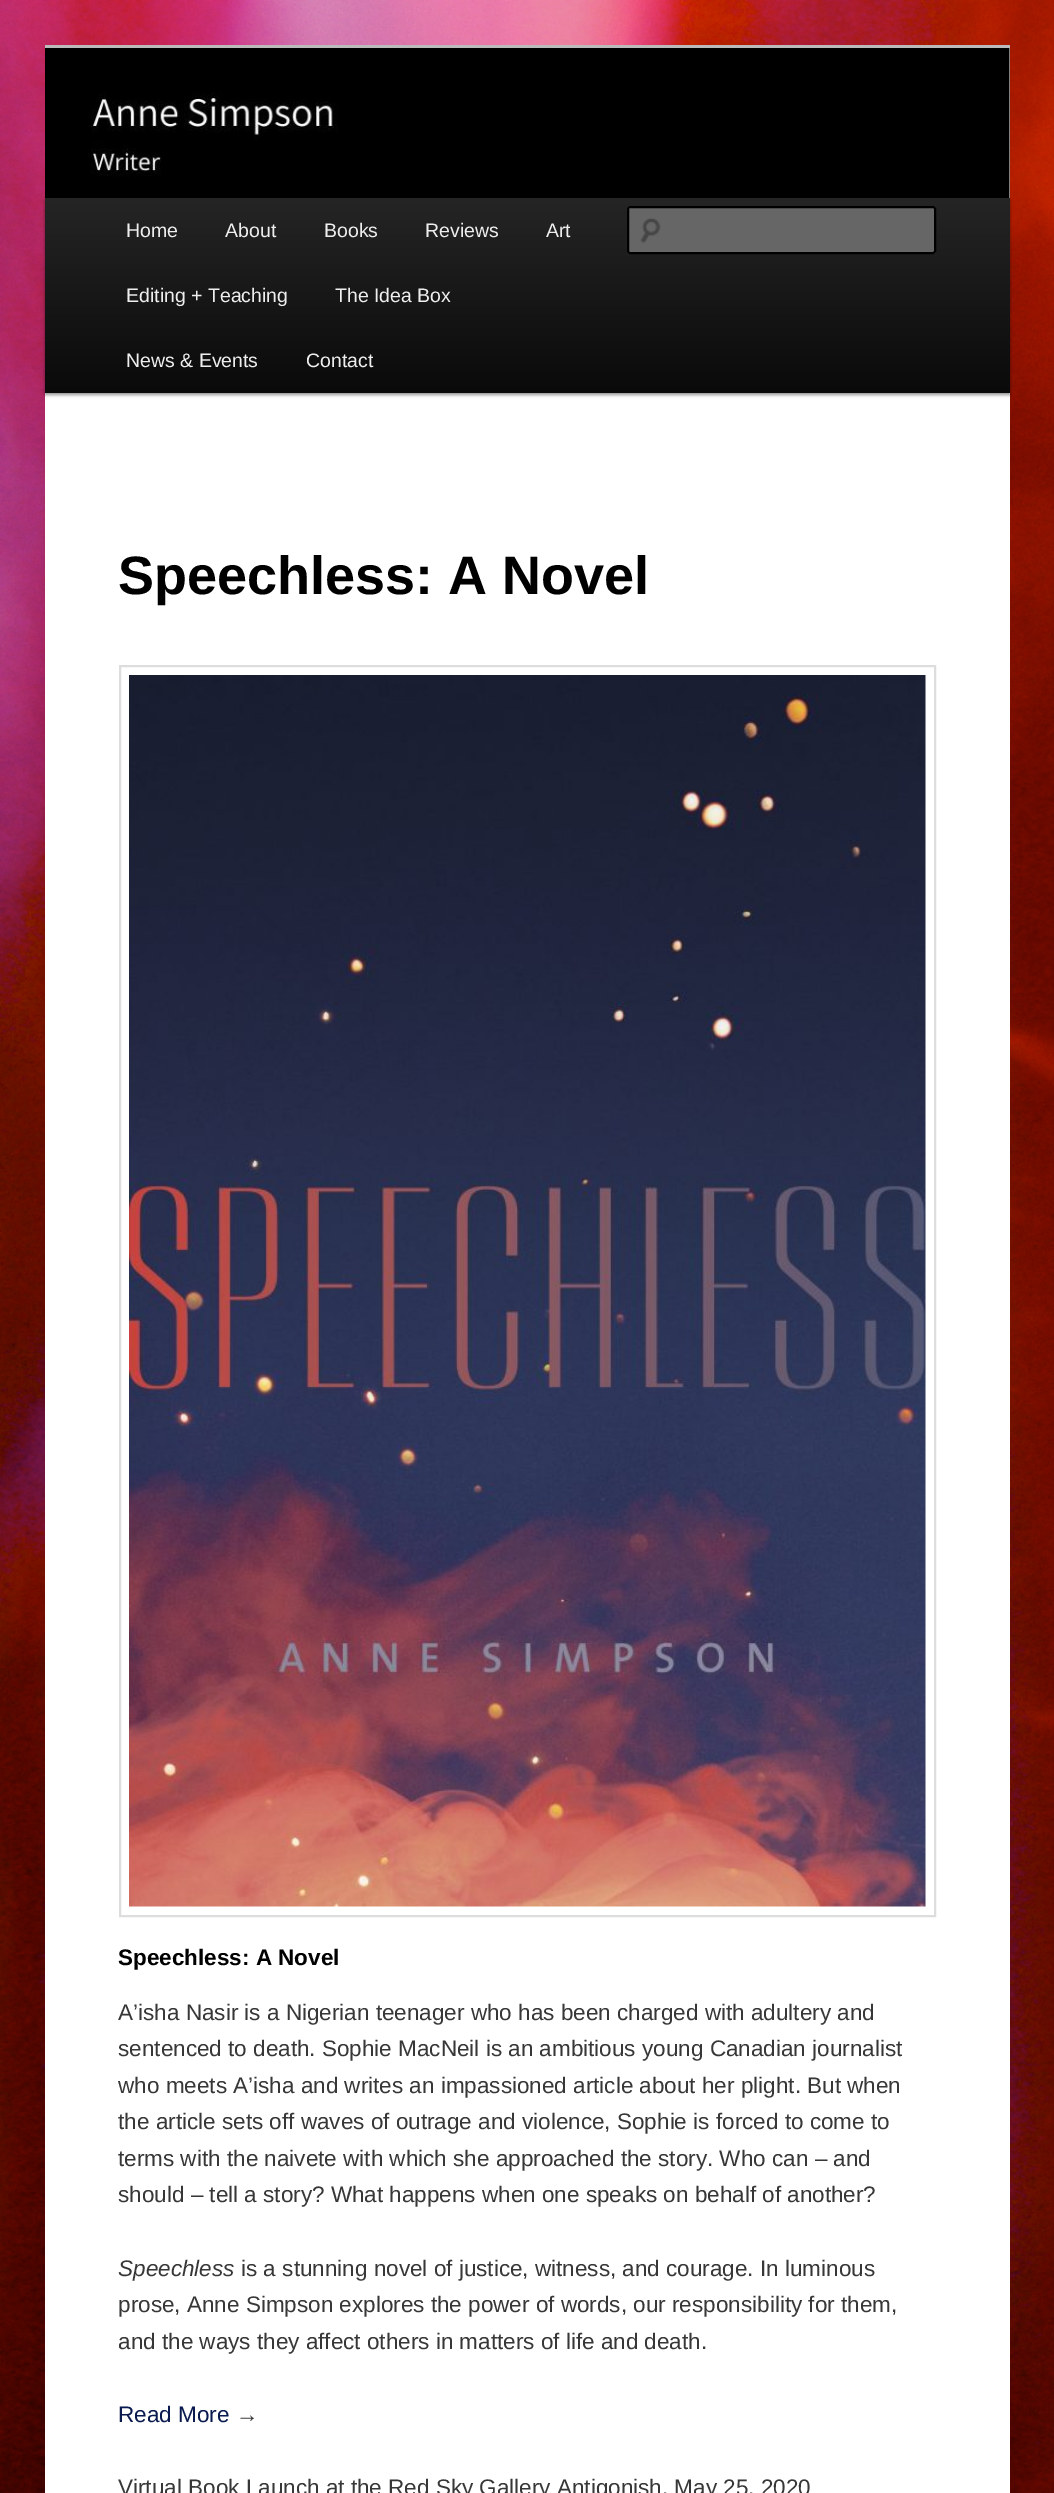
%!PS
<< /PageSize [1054 2493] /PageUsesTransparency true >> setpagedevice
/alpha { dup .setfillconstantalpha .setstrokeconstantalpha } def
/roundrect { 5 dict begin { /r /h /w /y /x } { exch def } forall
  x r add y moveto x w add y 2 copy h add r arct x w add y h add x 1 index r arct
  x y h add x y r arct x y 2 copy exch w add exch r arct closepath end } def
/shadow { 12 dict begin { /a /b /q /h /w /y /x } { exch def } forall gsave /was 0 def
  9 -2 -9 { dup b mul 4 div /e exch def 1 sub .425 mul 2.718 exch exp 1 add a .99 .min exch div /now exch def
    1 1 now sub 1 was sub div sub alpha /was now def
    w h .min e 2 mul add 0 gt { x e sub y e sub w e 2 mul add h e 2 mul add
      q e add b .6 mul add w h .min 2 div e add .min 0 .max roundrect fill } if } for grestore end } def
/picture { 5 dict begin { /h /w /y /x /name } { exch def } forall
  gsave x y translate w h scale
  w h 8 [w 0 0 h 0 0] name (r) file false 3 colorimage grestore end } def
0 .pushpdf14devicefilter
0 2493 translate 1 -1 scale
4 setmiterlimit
1 setgray
0 0 1054 2493 rectfill
(img1.rgb) 0 0 1054 2493 picture
45 48 965 2445 rectfill
0.733 setgray
45 45 965 3 rectfill
0 setgray
45 200 965 195 0 1.5 0.4 shadow
(img2.rgb) 45 48 965 150 picture
gsave newpath 45 198 moveto 1010 198 lineto 1010 393 lineto 45 393 lineto closepath clip newpath
<< /ShadingType 2 /ColorSpace /DeviceRGB /Coords [527 198 527 393] /Extend [true true] /Function << /FunctionType 2 /Domain [0 1] /C0 [0.145 0.145 0.145] /C1 [0.039 0.039 0.039] /N 1 >> >> shfill grestore
/LiberationSans-Regular [19.5 0 0 -19.5 0 0] selectfont
0.933 setgray
126 237 moveto (Home) show
225 237 moveto (About) show
324 237 moveto (Books) show
425 237 moveto (Reviews) show
546 237 moveto (Art) show
126 302 moveto (Editing + Teaching) show
335 302 moveto (The Idea Box) show
126 367 moveto (News & Events) show
306 367 moveto (Contact) show
0.4 setgray
627 206 309 48 3 roundrect fill
(img3.rgb) 640 218 21 25 picture
0 setgray
2 setlinewidth
628 207 307 46 2 roundrect stroke
/LiberationSans-Bold [54 0 0 -54 0 0] selectfont
118 594 moveto (Speechless: A Novel) show
0.867 setgray
120 666 815 1250 rectstroke
(img4.rgb) 129 675 797 1232 picture
/LiberationSans-Bold [22.5 0 0 -22.5 0 0] selectfont
0 setgray
118 1965 moveto (Speechless: A Novel) show
/LiberationSans-Regular [22.5 0 0 -22.5 0 0] selectfont
0.216 setgray
118 2020 moveto (A’isha Nasir is a Nigerian teenager who has been charged with adultery and) show
118 2056 moveto (sentenced to death. Sophie MacNeil is an ambitious young Canadian journalist) show
118 2093 moveto (who meets A’isha and writes an impassioned article about her plight. But when) show
118 2129 moveto (the article sets off waves of outrage and violence, Sophie is forced to come to) show
118 2166 moveto (terms with the naivete with which she approached the story. Who can – and) show
118 2202 moveto (should – tell a story? What happens when one speaks on behalf of another?) show
/LiberationSans-Italic [22.5 0 0 -22.5 0 0] selectfont
118 2276 moveto (Speechless) show
/LiberationSans-Regular [22.5 0 0 -22.5 0 0] selectfont
241 2276 moveto (is a stunning novel of justice, witness, and courage. In luminous) show
118 2312 moveto (prose, Anne Simpson explores the power of words, our responsibility for them,) show
118 2349 moveto (and the ways they affect others in matters of life and death.) show
0.035 0.102 0.31 setrgbcolor
118 2422 moveto (Read More) show
0.216 setgray
236 2422 moveto (→) show
118 2495 moveto (Virtual Book Launch at the Red Sky Gallery Antigonish. May 25, 2020) show
.poppdf14devicefilter showpage
